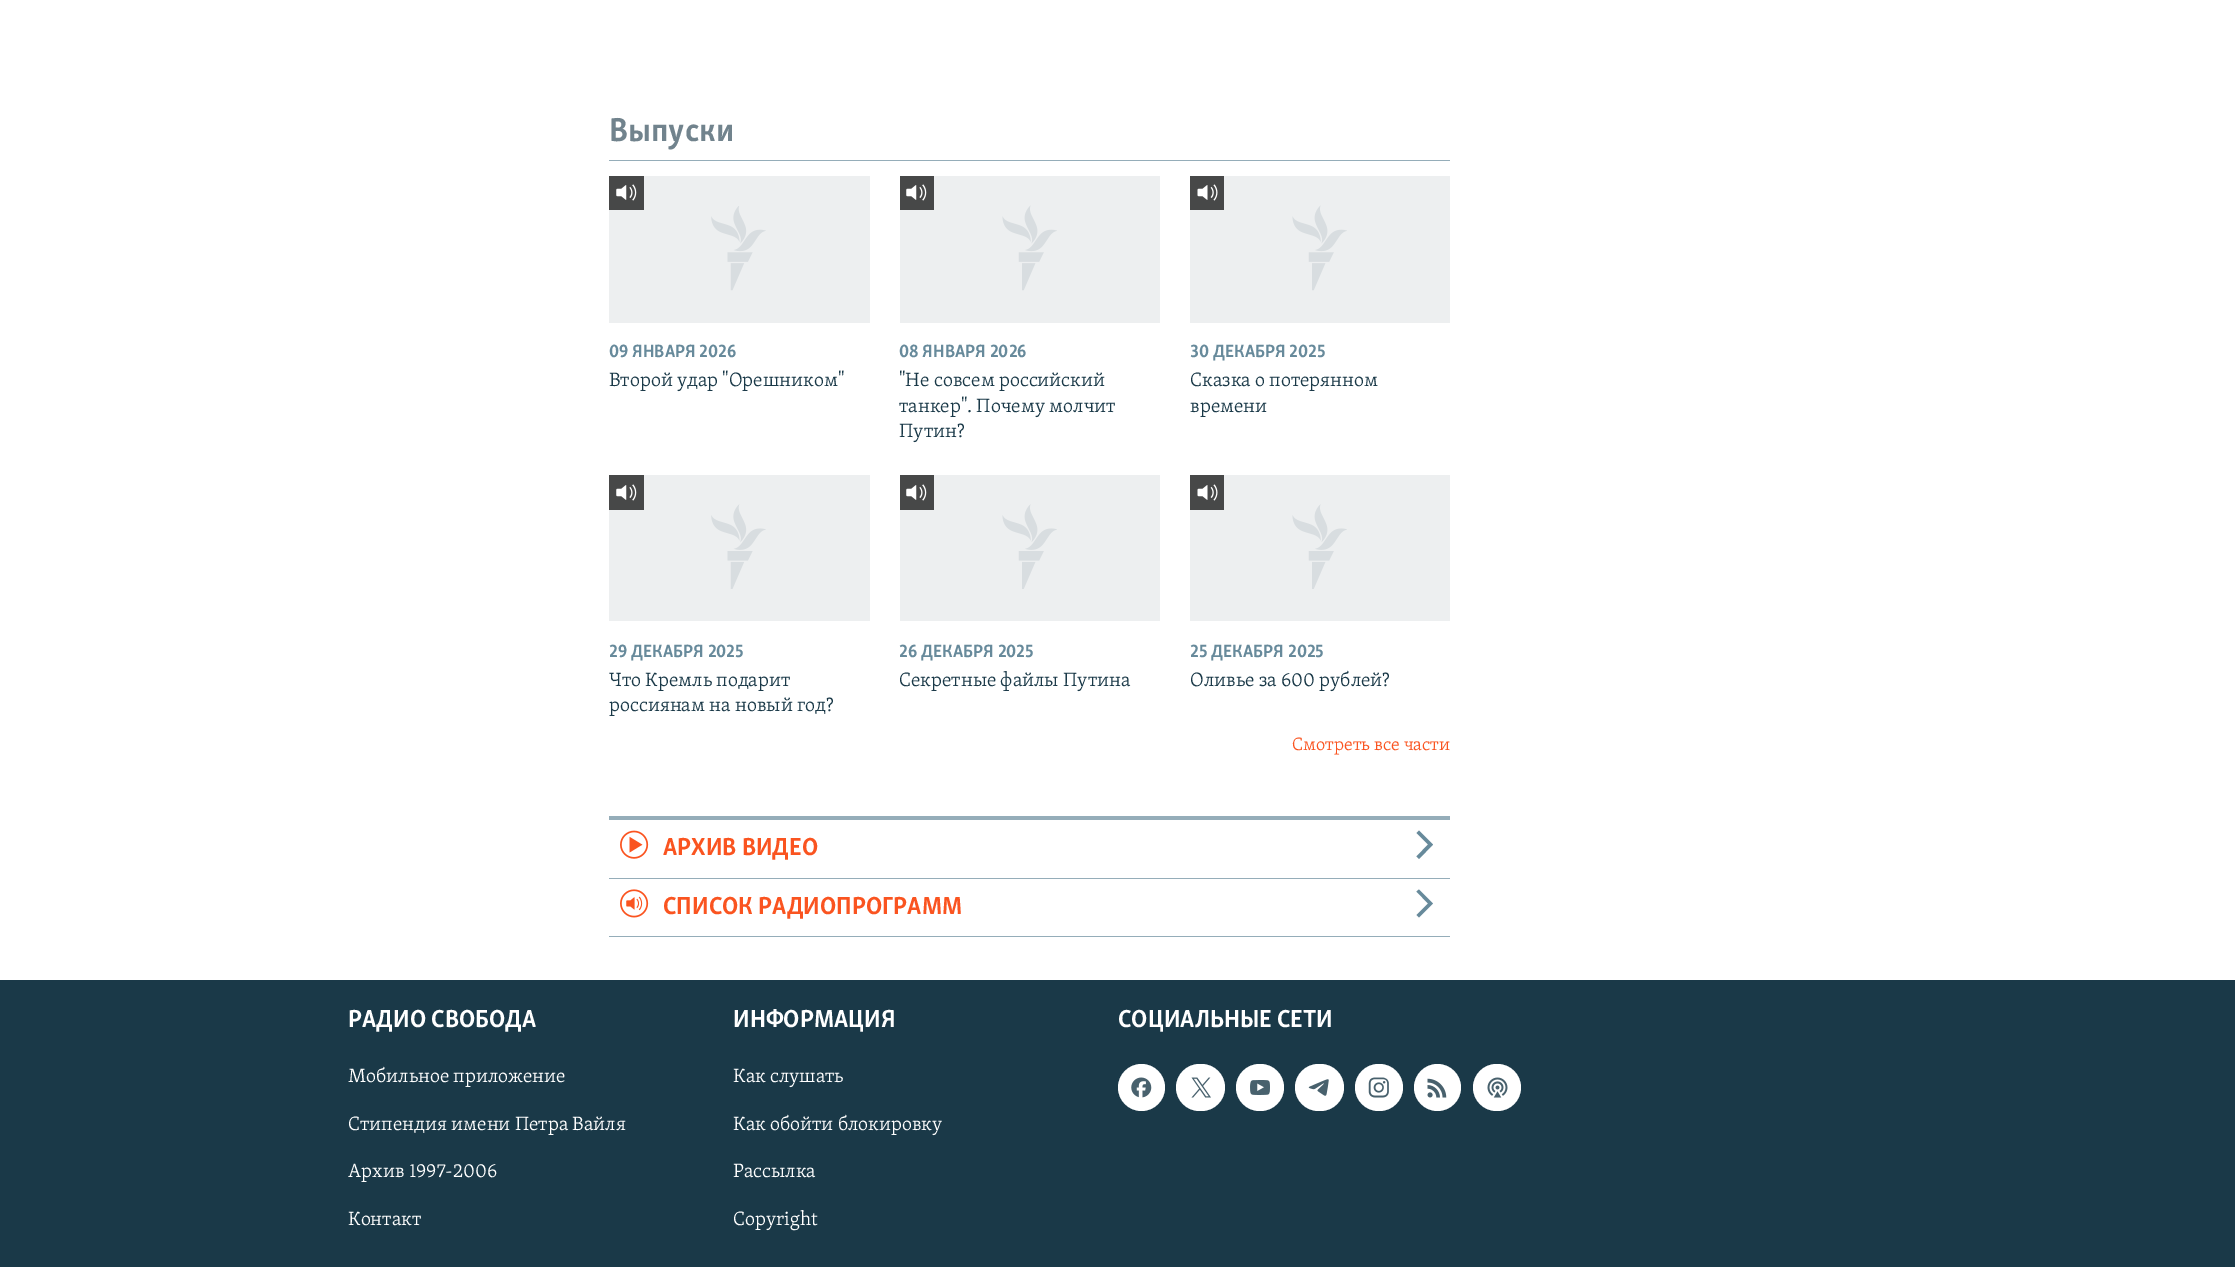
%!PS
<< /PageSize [2235 1267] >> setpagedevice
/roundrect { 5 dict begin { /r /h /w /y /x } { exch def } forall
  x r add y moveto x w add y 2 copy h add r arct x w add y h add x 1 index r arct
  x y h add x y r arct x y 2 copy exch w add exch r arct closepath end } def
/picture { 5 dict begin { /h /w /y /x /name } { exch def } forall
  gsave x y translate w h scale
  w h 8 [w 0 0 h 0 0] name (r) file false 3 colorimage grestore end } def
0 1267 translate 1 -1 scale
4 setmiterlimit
1 setgray
0 0 2235 1267 rectfill
0.584 0.678 0.725 setrgbcolor
609 160 841 1 rectfill
/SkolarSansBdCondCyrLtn-Bold [34 0 0 -34 0 0] selectfont
0.443 0.514 0.553 setrgbcolor
609 141 moveto (Выпуски) show
0.929 0.937 0.941 setrgbcolor
609 176 261 147 rectfill
(img1.rgb) 711 206 55 85 picture
0.278 0.282 0.282 setrgbcolor
609 176 35 34 rectfill
(img2.rgb) 616 184 21 17 picture
/SkolarSansBdCondCyrLtn-Bold [18.25 0 0 -18.25 0 0] selectfont
0.404 0.541 0.608 setrgbcolor
609 357 moveto (09 ЯНВАРЯ 2026) show
/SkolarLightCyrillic-Light [19.75 0 0 -19.75 0 0] selectfont
0.102 0.224 0.282 setrgbcolor
609 386 moveto (Второй удар "Орешником") show
0.929 0.937 0.941 setrgbcolor
900 176 260 147 rectfill
(img3.rgb) 1002 205 55 86 picture
0.278 0.282 0.282 setrgbcolor
900 176 34 34 rectfill
(img2.rgb) 906 184 21 17 picture
/SkolarSansBdCondCyrLtn-Bold [18.25 0 0 -18.25 0 0] selectfont
0.404 0.541 0.608 setrgbcolor
899 357 moveto (08 ЯНВАРЯ 2026) show
/SkolarLightCyrillic-Light [19.75 0 0 -19.75 0 0] selectfont
0.102 0.224 0.282 setrgbcolor
899 386 moveto ("Не совсем российский) show
899 412 moveto (танкер". Почему молчит) show
899 437 moveto (Путин?) show
0.929 0.937 0.941 setrgbcolor
1190 176 260 147 rectfill
(img3.rgb) 1292 205 55 86 picture
0.278 0.282 0.282 setrgbcolor
1190 176 34 34 rectfill
(img4.rgb) 1197 184 21 17 picture
/SkolarSansBdCondCyrLtn-Bold [18.25 0 0 -18.25 0 0] selectfont
0.404 0.541 0.608 setrgbcolor
1190 357 moveto (30 ДЕКАБРЯ 2025) show
/SkolarLightCyrillic-Light [19.75 0 0 -19.75 0 0] selectfont
0.102 0.224 0.282 setrgbcolor
1190 386 moveto (Сказка о потерянном) show
1190 412 moveto (времени) show
0.929 0.937 0.941 setrgbcolor
609 475 261 146 rectfill
(img5.rgb) 711 504 55 85 picture
0.278 0.282 0.282 setrgbcolor
609 475 35 35 rectfill
(img2.rgb) 616 484 21 17 picture
/SkolarSansBdCondCyrLtn-Bold [18.25 0 0 -18.25 0 0] selectfont
0.404 0.541 0.608 setrgbcolor
609 657 moveto (29 ДЕКАБРЯ 2025) show
/SkolarLightCyrillic-Light [19.75 0 0 -19.75 0 0] selectfont
0.102 0.224 0.282 setrgbcolor
609 686 moveto (Что Кремль подарит) show
609 711 moveto (россиянам на новый год?) show
0.929 0.937 0.941 setrgbcolor
900 475 260 146 rectfill
(img6.rgb) 1002 504 55 85 picture
0.278 0.282 0.282 setrgbcolor
900 475 34 35 rectfill
(img2.rgb) 906 484 21 17 picture
/SkolarSansBdCondCyrLtn-Bold [18.25 0 0 -18.25 0 0] selectfont
0.404 0.541 0.608 setrgbcolor
899 657 moveto (26 ДЕКАБРЯ 2025) show
/SkolarLightCyrillic-Light [19.75 0 0 -19.75 0 0] selectfont
0.102 0.224 0.282 setrgbcolor
899 686 moveto (Секретные файлы Путина) show
0.929 0.937 0.941 setrgbcolor
1190 475 260 146 rectfill
(img6.rgb) 1292 504 55 85 picture
0.278 0.282 0.282 setrgbcolor
1190 475 34 35 rectfill
(img4.rgb) 1197 484 21 17 picture
/SkolarSansBdCondCyrLtn-Bold [18.25 0 0 -18.25 0 0] selectfont
0.404 0.541 0.608 setrgbcolor
1190 657 moveto (25 ДЕКАБРЯ 2025) show
/SkolarLightCyrillic-Light [19.75 0 0 -19.75 0 0] selectfont
0.102 0.224 0.282 setrgbcolor
1190 686 moveto (Оливье за 600 рублей?) show
/SkolarLightCyrillic-Light [18.25 0 0 -18.25 0 0] selectfont
0.98 0.329 0.125 setrgbcolor
1292 750 moveto (Смотреть все части) show
0.584 0.678 0.725 setrgbcolor
609 816 841 4 rectfill
609 878 841 1 rectfill
(img7.rgb) 620 830 29 29 picture
/SkolarSansBdCondCyrLtn-Bold [25.25 0 0 -25.25 0 0] selectfont
0.98 0.329 0.125 setrgbcolor
663 855 moveto (АРХИВ ВИДЕО) show
0.404 0.541 0.608 setrgbcolor
newpath 1419 859 moveto 1433 844.5 lineto 1419 830.5 lineto 1416.5 833 lineto 1428 844.5 lineto 1416.5 856.5 lineto closepath fill
0.584 0.678 0.725 setrgbcolor
609 936 841 1 rectfill
(img8.rgb) 620 889 29 29 picture
0.98 0.329 0.125 setrgbcolor
663 914 moveto (СПИСОК РАДИОПРОГРАММ) show
0.404 0.541 0.608 setrgbcolor
newpath 1419 917.5 moveto 1433 903.5 lineto 1419 889.5 lineto 1416.5 891.5 lineto 1428 903.5 lineto 1416.5 915 lineto closepath fill
0.102 0.224 0.282 setrgbcolor
0 980 2235 287 rectfill
1 setgray
348 1027 moveto (РАДИО СВОБОДА) show
/SkolarLightCyrillic-Light [19.75 0 0 -19.75 0 0] selectfont
348 1082 moveto (Мобильное приложение) show
348 1130 moveto (Стипендия имени Петра Вайля) show
348 1177 moveto (Архив 1997-2006) show
348 1225 moveto (Контакт) show
/SkolarSansBdCondCyrLtn-Bold [25.25 0 0 -25.25 0 0] selectfont
733 1027 moveto (ИНФОРМАЦИЯ) show
/SkolarLightCyrillic-Light [19.75 0 0 -19.75 0 0] selectfont
733 1082 moveto (Как слушать) show
733 1130 moveto (Как обойти блокировку) show
733 1177 moveto (Рассылка) show
733 1225 moveto (Copyright) show
/SkolarSansBdCondCyrLtn-Bold [25.25 0 0 -25.25 0 0] selectfont
1118 1027 moveto (СОЦИАЛЬНЫЕ СЕТИ) show
newpath 1141.5 1087.5 23.5 0 360 arc closepath fill
(img9.rgb) 1131 1077 21 21 picture
1176 1064 49 47 23.5 roundrect fill
(img10.rgb) 1191 1077 20 21 picture
1236 1064 48 47 23.5 roundrect fill
(img11.rgb) 1250 1080 20 15 picture
1295 1064 49 47 23.5 roundrect fill
(img12.rgb) 1308 1079 21 17 picture
1355 1064 48 47 23.5 roundrect fill
(img13.rgb) 1368 1077 21 21 picture
newpath 1437.5 1087.5 23.5 0 360 arc closepath fill
(img14.rgb) 1427 1078 20 20 picture
1473 1064 48 47 23.5 roundrect fill
(img15.rgb) 1487 1077 21 21 picture
showpage
